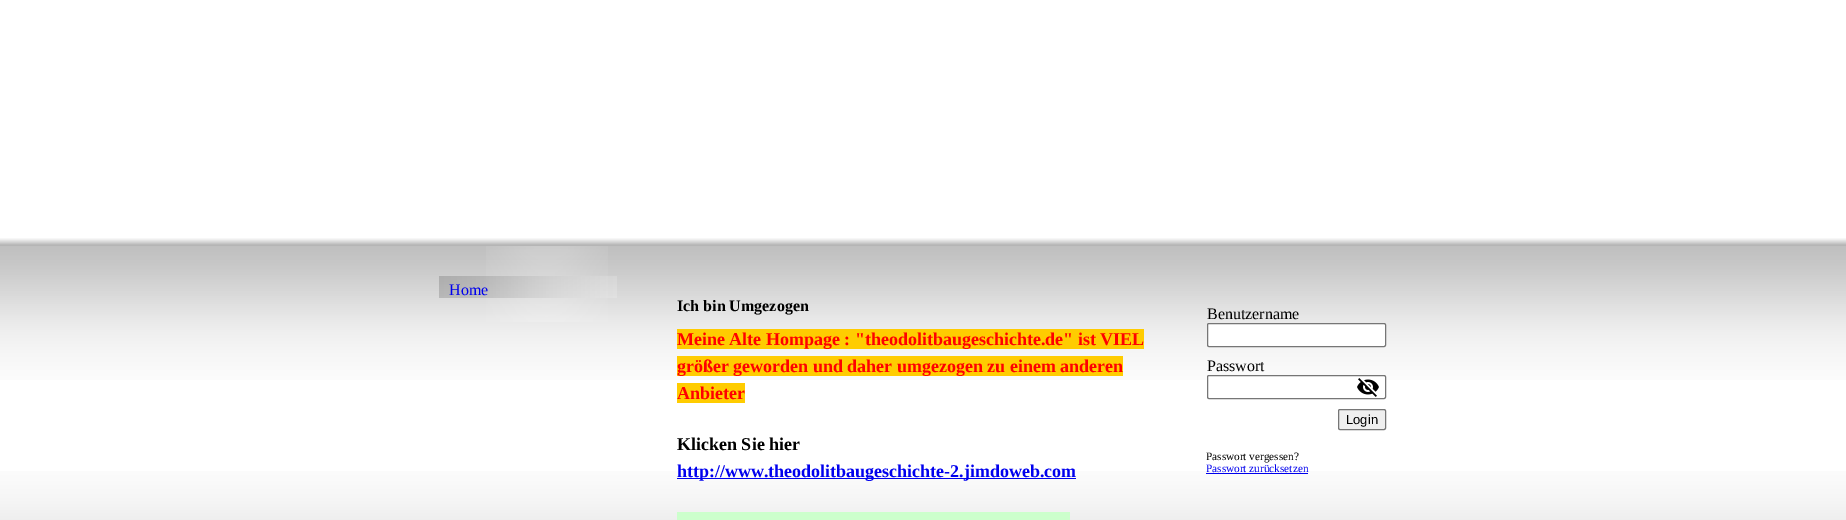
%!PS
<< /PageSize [1846 520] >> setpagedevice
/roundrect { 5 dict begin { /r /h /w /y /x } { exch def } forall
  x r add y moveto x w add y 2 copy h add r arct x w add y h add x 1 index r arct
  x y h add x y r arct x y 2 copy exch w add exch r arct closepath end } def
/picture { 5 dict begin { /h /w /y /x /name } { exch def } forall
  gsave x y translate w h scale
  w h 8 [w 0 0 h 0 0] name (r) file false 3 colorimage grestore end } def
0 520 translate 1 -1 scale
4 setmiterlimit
1 setgray
0 0 1846 520 rectfill
(img1.rgb) 0 238 1846 8 picture
(img2.rgb) 0 246 1846 134 picture
(img3.rgb) 0 471 1846 49 picture
(img4.rgb) 486 246 122 76 picture
(img5.rgb) 439 276 178 22 picture
/LiberationSerif-Regular [16 0 0 -16 0 0] selectfont
0 0 0.933 setrgbcolor
449 295 moveto (Home) show
/LiberationSerif-Bold [16 0 0 -16 0 0] selectfont
0 setgray
677 311 moveto (Ich bin Umgezogen) show
1 0.8 0 setrgbcolor
677 329 467 20 rectfill
/LiberationSerif-Bold [18 0 0 -18 0 0] selectfont
1 0 0 setrgbcolor
677 345 moveto (Meine Alte Hompage : "theodolitbaugeschichte.de" ist VIEL) show
1 0.8 0 setrgbcolor
677 356 446 20 rectfill
1 0 0 setrgbcolor
677 372 moveto (größer geworden und daher umgezogen zu einem anderen) show
1 0.8 0 setrgbcolor
677 383 68 20 rectfill
1 0 0 setrgbcolor
677 399 moveto (Anbieter) show
0 setgray
677 450 moveto (Klicken Sie hier) show
0 0 0.933 setrgbcolor
677 478 399 1 rectfill
677 477 moveto (http://www.theodolitbaugeschichte-2.jimdoweb.com) show
0.8 1 0.8 setrgbcolor
677 512 393 8 rectfill
/LiberationSerif-Regular [16 0 0 -16 0 0] selectfont
0 setgray
1207 319 moveto (Benutzername) show
1 setgray
1207.5 323.5 178 23 1.5 roundrect gsave fill grestore
0.463 setgray
stroke
0 setgray
1207 371 moveto (Passwort) show
1 setgray
1207.5 375.5 178 23 1.5 roundrect gsave fill grestore
0.463 setgray
stroke
(img6.rgb) 1357 378 22 19 picture
0.937 setgray
1338.5 409.5 47 20 1.5 roundrect gsave fill grestore
0.463 setgray
stroke
/LiberationSans-Regular [13 0 0 -13 0 0] selectfont
0 setgray
1346 424 moveto (Login) show
/LiberationSerif-Regular [11.25 0 0 -11.25 0 0] selectfont
1206 460 moveto (Passwort vergessen?) show
0 0 0.933 setrgbcolor
1206 472 moveto (Passwort zurücksetzen) show
1206 473 102 1 rectfill
showpage
